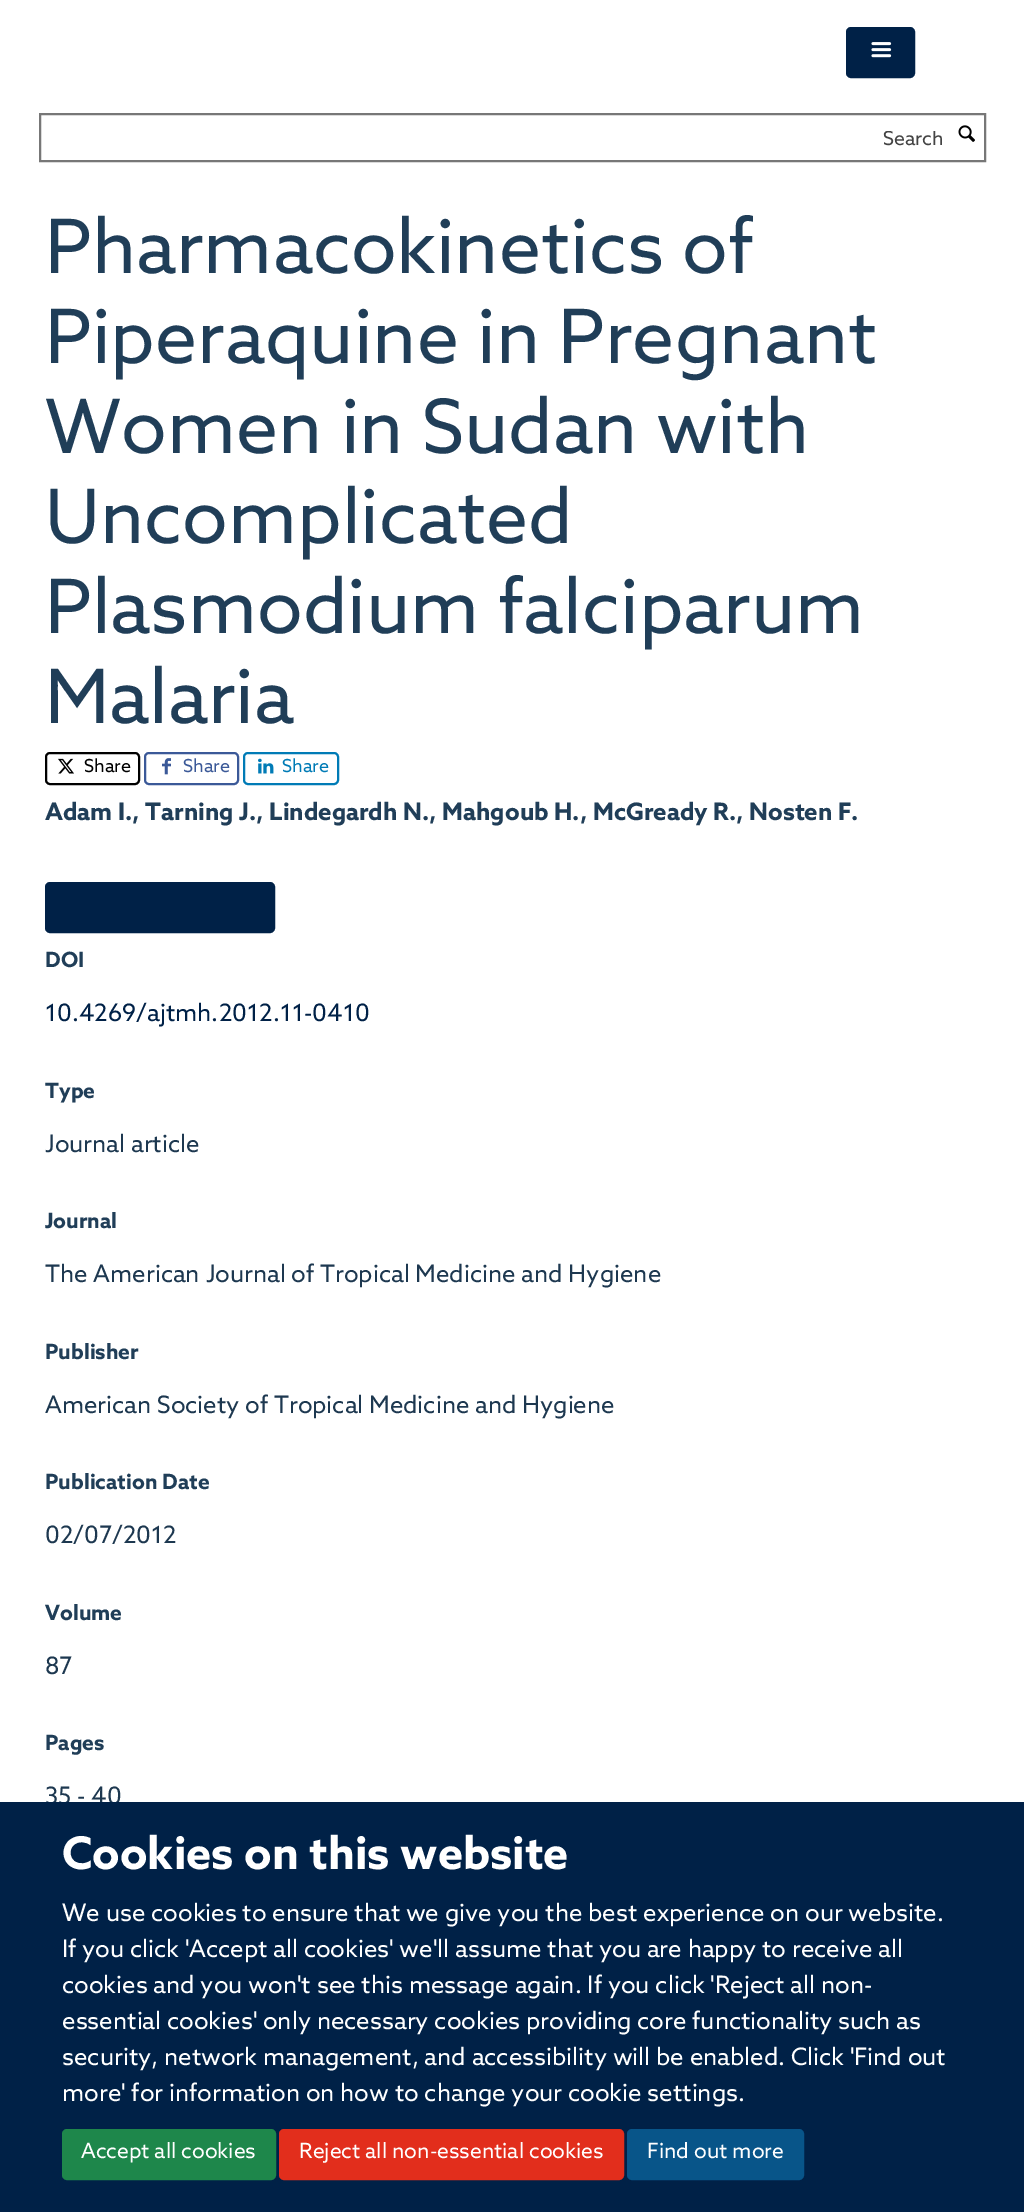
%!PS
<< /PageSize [1024 2212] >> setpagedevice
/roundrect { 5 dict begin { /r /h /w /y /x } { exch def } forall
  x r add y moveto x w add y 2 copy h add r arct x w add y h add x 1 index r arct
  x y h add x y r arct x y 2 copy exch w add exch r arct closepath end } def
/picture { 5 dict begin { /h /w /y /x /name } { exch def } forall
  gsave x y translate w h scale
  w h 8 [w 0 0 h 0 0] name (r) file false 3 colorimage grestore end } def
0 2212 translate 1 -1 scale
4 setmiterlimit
1 setgray
0 0 1024 2212 rectfill
0 0.129 0.278 setrgbcolor
847 28 67 49 4 roundrect gsave fill grestore
2 setlinewidth
stroke
(img1.rgb) 871 42 21 16 picture
0.467 setgray
40 114 945 47 rectstroke
gsave
50 131 894 19 rectclip
/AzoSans-Regular [19.5 0 0 -19.5 0 0] selectfont
0.267 setgray
883 145 moveto (Search) show
grestore
(img2.rgb) 958 125 17 17 picture
/AzoSans-Regular [75 0 0 -75 0 0] selectfont
0.125 0.243 0.345 setrgbcolor
45 273 moveto (Pharmacokinetics of) show
45 363 moveto (Piperaquine in Pregnant) show
45 453 moveto (Women in Sudan with) show
45 543 moveto (Uncomplicated) show
45 633 moveto (Plasmodium falciparum) show
45 723 moveto (Malaria) show
0 setgray
46 753 93 31 4 roundrect stroke
(img3.rgb) 58 758 16 16 picture
/AzoSans-Regular [18 0 0 -18 0 0] selectfont
84 772 moveto (Share) show
0.231 0.349 0.596 setrgbcolor
145 753 93 31 4 roundrect stroke
(img4.rgb) 162 758 9 17 picture
183 772 moveto (Share) show
0 0.482 0.714 setrgbcolor
244 753 94 31 4 roundrect stroke
(img5.rgb) 258 758 16 16 picture
282 772 moveto (Share) show
/AzoSans-Bold [24 0 0 -24 0 0] selectfont
0.125 0.243 0.345 setrgbcolor
45 820 moveto (Adam I., Tarning J., Lindegardh N., Mahgoub H., McGready R., Nosten F.) show
0 0.129 0.278 setrgbcolor
46 883 228 49 4 roundrect gsave fill grestore
stroke
/AzoSans-Bold [21 0 0 -21 0 0] selectfont
0.125 0.243 0.345 setrgbcolor
45 967 moveto (DOI) show
/AzoSans-Regular [24 0 0 -24 0 0] selectfont
0 0.129 0.278 setrgbcolor
45 1021 moveto (10.4269/ajtmh.2012.11-0410) show
/AzoSans-Bold [21 0 0 -21 0 0] selectfont
0.125 0.243 0.345 setrgbcolor
45 1098 moveto (Type) show
/AzoSans-Regular [24 0 0 -24 0 0] selectfont
0.114 0.22 0.314 setrgbcolor
45 1152 moveto (Journal article) show
/AzoSans-Bold [21 0 0 -21 0 0] selectfont
0.125 0.243 0.345 setrgbcolor
45 1228 moveto (Journal) show
/AzoSans-Regular [24 0 0 -24 0 0] selectfont
0.114 0.22 0.314 setrgbcolor
45 1282 moveto (The American Journal of Tropical Medicine and Hygiene) show
/AzoSans-Bold [21 0 0 -21 0 0] selectfont
0.125 0.243 0.345 setrgbcolor
45 1359 moveto (Publisher) show
/AzoSans-Regular [24 0 0 -24 0 0] selectfont
0.114 0.22 0.314 setrgbcolor
45 1413 moveto (American Society of Tropical Medicine and Hygiene) show
/AzoSans-Bold [21 0 0 -21 0 0] selectfont
0.125 0.243 0.345 setrgbcolor
45 1489 moveto (Publication Date) show
/AzoSans-Regular [24 0 0 -24 0 0] selectfont
0.114 0.22 0.314 setrgbcolor
45 1543 moveto (02/07/2012) show
/AzoSans-Bold [21 0 0 -21 0 0] selectfont
0.125 0.243 0.345 setrgbcolor
45 1620 moveto (Volume) show
/AzoSans-Regular [24 0 0 -24 0 0] selectfont
0.114 0.22 0.314 setrgbcolor
45 1674 moveto (87) show
/AzoSans-Bold [21 0 0 -21 0 0] selectfont
0.125 0.243 0.345 setrgbcolor
45 1750 moveto (Pages) show
/AzoSans-Regular [24 0 0 -24 0 0] selectfont
0.114 0.22 0.314 setrgbcolor
45 1804 moveto (35 - 40) show
0 0.129 0.278 setrgbcolor
0 1802 1024 410 rectfill
/AzoSans-Bold [45 0 0 -45 0 0] selectfont
1 setgray
62 1869 moveto (Cookies on this website) show
/AzoSans-Regular [24 0 0 -24 0 0] selectfont
62 1921 moveto (We use cookies to ensure that we give you the best experience on our website.) show
62 1957 moveto (If you click 'Accept all cookies' we'll assume that you are happy to receive all) show
62 1993 moveto (cookies and you won't see this message again. If you click 'Reject all non-) show
62 2029 moveto (essential cookies' only necessary cookies providing core functionality such as) show
62 2065 moveto (security, network management, and accessibility will be enabled. Click 'Find out) show
62 2101 moveto (more' for information on how to change your cookie settings.) show
0.118 0.529 0.294 setrgbcolor
63 2130 212 49 4 roundrect gsave fill grestore
stroke
/AzoSans-Regular [21 0 0 -21 0 0] selectfont
1 setgray
81 2158 moveto (Accept all cookies) show
0.886 0.18 0.11 setrgbcolor
280 2130 343 49 4 roundrect gsave fill grestore
stroke
1 setgray
299 2158 moveto (Reject all non-essential cookies) show
0.031 0.333 0.537 setrgbcolor
628 2130 175 49 4 roundrect gsave fill grestore
stroke
1 setgray
647 2158 moveto (Find out more) show
showpage
